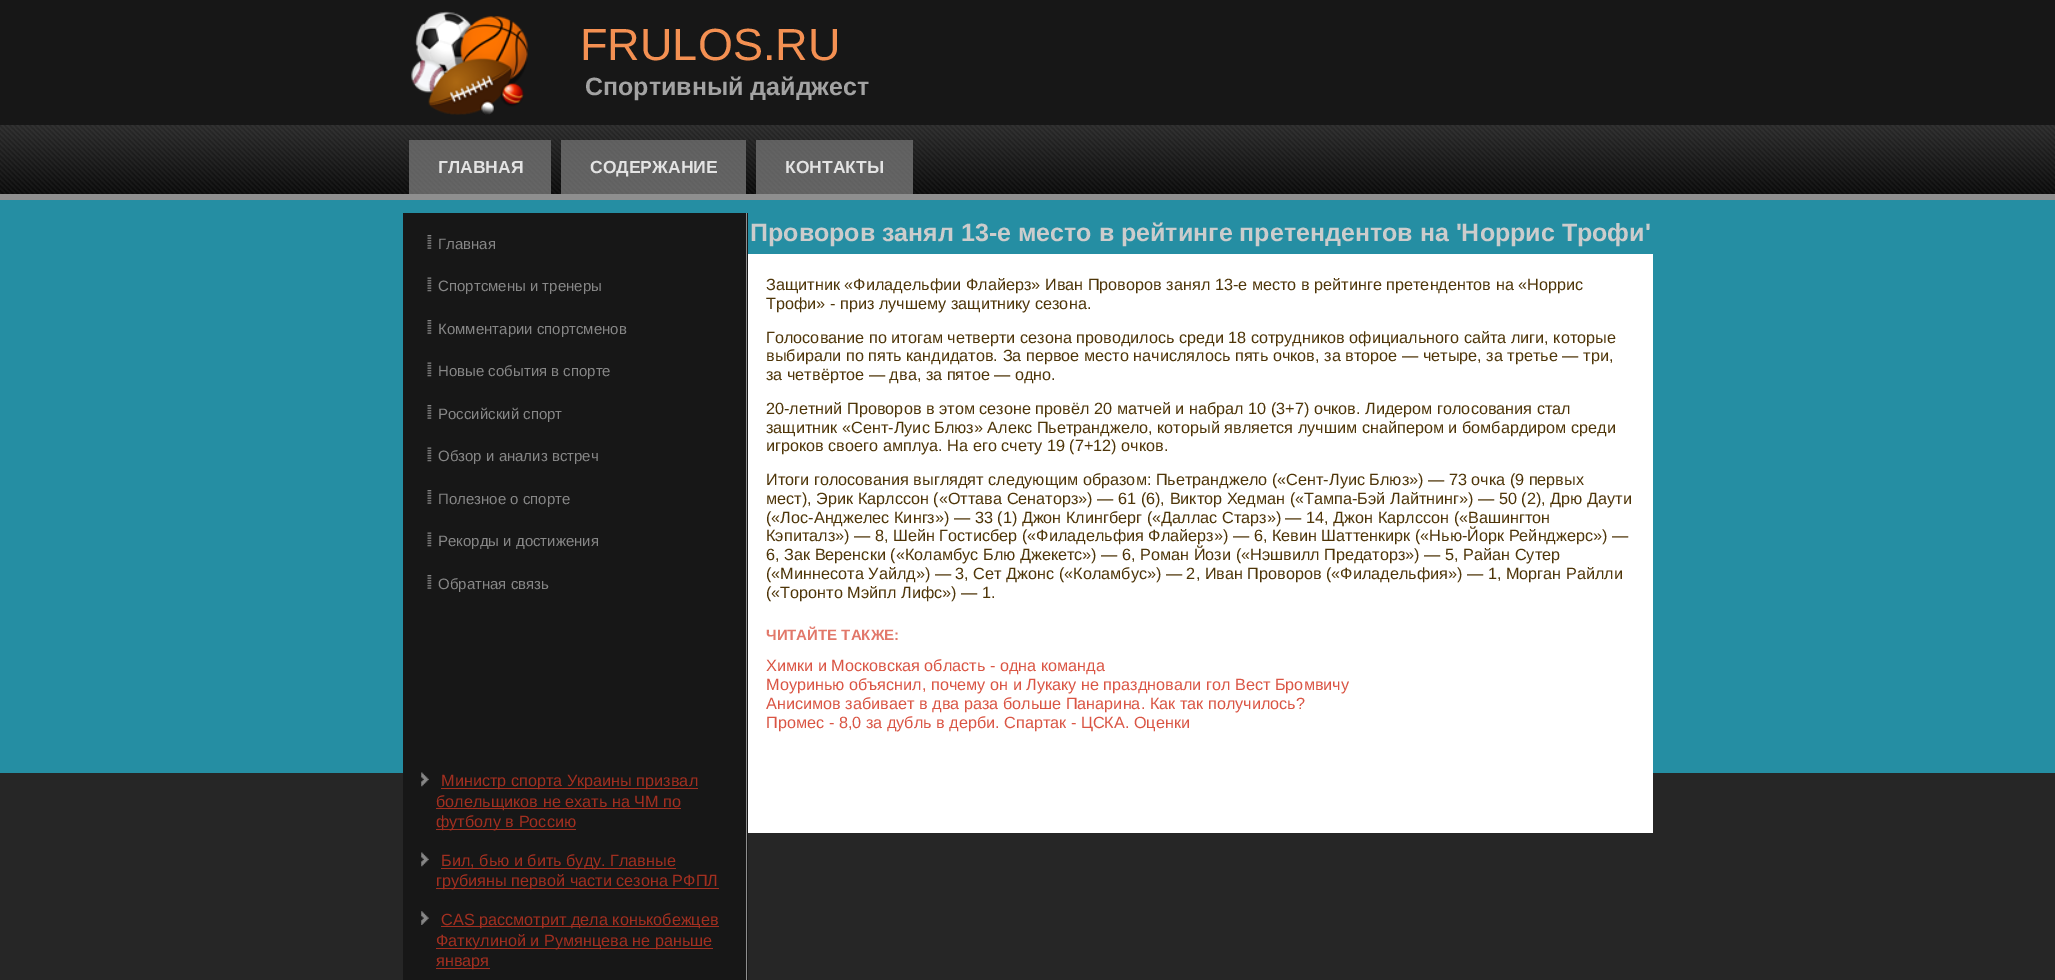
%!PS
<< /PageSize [2055 980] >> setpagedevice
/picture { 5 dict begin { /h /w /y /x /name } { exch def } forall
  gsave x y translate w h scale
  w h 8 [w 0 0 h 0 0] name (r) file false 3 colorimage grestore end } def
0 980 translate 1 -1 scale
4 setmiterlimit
0.149 setgray
0 0 2055 980 rectfill
0.145 0.557 0.639 setrgbcolor
0 200 2055 573 rectfill
0.09 setgray
0 0 2055 125 rectfill
(img1.rgb) 411 11 118 104 picture
/LiberationSans-Regular [45 0 0 -45 0 0] selectfont
0.957 0.565 0.322 setrgbcolor
580 60 moveto (FRULOS.RU) show
/LiberationSans-Bold [25 0 0 -25 0 0] selectfont
0.639 setgray
585 95 moveto (Спортивный дайджест) show
(img2.rgb) 0 125 2055 69 picture
0.561 setgray
0 194 2055 6 rectfill
/LiberationSans-Bold [17.5 0 0 -17.5 0 0] selectfont
0.89 setgray
438 173 moveto (ГЛАВНАЯ) show
590 173 moveto (СОДЕРЖАНИЕ) show
785 173 moveto (КОНТАКТЫ) show
0.09 setgray
403 213 345 767 rectfill
0.561 setgray
746 213 1 767 rectfill
(img3.rgb) 427 235 5 14 picture
/LiberationSans-Regular [15 0 0 -15 0 0] selectfont
0.529 setgray
438 249 moveto (Главная) show
(img4.rgb) 427 277 5 15 picture
438 291 moveto (Спортсмены и тренеры) show
(img3.rgb) 427 320 5 14 picture
438 334 moveto (Комментарии спортсменов) show
(img4.rgb) 427 362 5 15 picture
438 376 moveto (Новые события в спорте) show
(img3.rgb) 427 405 5 14 picture
438 419 moveto (Российский спорт) show
(img4.rgb) 427 447 5 15 picture
438 461 moveto (Обзор и анализ встреч) show
(img3.rgb) 427 490 5 14 picture
438 504 moveto (Полезное о спорте) show
(img4.rgb) 427 532 5 15 picture
438 546 moveto (Рекорды и достижения) show
(img3.rgb) 427 575 5 14 picture
438 589 moveto (Обратная связь) show
(img5.rgb) 421 772 8 15 picture
0.635 0.184 0.125 setrgbcolor
441 788 257 1 rectfill
/LiberationSans-Regular [16.25 0 0 -16.25 0 0] selectfont
441 786 moveto (Министр спорта Украины призвал) show
436 808 245 1 rectfill
436 807 moveto (болельщиков не ехать на ЧМ по) show
436 829 140 1 rectfill
436 827 moveto (футболу в Россию) show
(img6.rgb) 421 852 8 15 picture
441 868 235 1 rectfill
441 866 moveto (Бил, бью и бить буду. Главные) show
436 888 283 1 rectfill
436 886 moveto (грубияны первой части сезона РФПЛ) show
(img7.rgb) 421 911 8 14 picture
441 926 278 1 rectfill
441 925 moveto (CAS рассмотрит дела конькобежцев) show
436 948 277 1 rectfill
436 946 moveto (Фаткулиной и Румянцева не раньше) show
436 968 54 1 rectfill
436 966 moveto (января) show
/LiberationSans-Bold [25 0 0 -25 0 0] selectfont
0.8 setgray
750 241 moveto (Проворов занял 13-е место в рейтинге претендентов на 'Норрис Трофи') show
1 setgray
748 254 905 579 rectfill
/LiberationSans-Regular [16.25 0 0 -16.25 0 0] selectfont
0.306 0.208 0.031 setrgbcolor
766 290 moveto (Защитник «Филадельфии Флайерз» Иван Проворов занял 13-е место в рейтинге претендентов на «Норрис) show
766 309 moveto (Трофи» - приз лучшему защитнику сезона.) show
766 343 moveto (Голосование по итогам четверти сезона проводилось среди 18 сотрудников официального сайта лиги, которые) show
766 361 moveto (выбирали по пять кандидатов. За первое место начислялось пять очков, за второе — четыре, за третье — три,) show
766 380 moveto (за четвёртое — два, за пятое — одно.) show
766 414 moveto (20-летний Проворов в этом сезоне провёл 20 матчей и набрал 10 \(3+7\) очков. Лидером голосования стал) show
766 433 moveto (защитник «Сент-Луис Блюз» Алекс Пьетранджело, который является лучшим снайпером и бомбардиром среди) show
766 451 moveto (игроков своего амплуа. На его счету 19 \(7+12\) очков.) show
766 485 moveto (Итоги голосования выглядят следующим образом: Пьетранджело \(«Сент-Луис Блюз»\) — 73 очка \(9 первых) show
766 504 moveto (мест\), Эрик Карлссон \(«Оттава Сенаторз»\) — 61 \(6\), Виктор Хедман \(«Тампа-Бэй Лайтнинг»\) — 50 \(2\), Дрю Даути) show
766 523 moveto (\(«Лос-Анджелес Кингз»\) — 33 \(1\) Джон Клингберг \(«Даллас Старз»\) — 14, Джон Карлссон \(«Вашингтон) show
766 541 moveto (Кэпиталз»\) — 8, Шейн Гостисбер \(«Филадельфия Флайерз»\) — 6, Кевин Шаттенкирк \(«Нью-Йорк Рейнджерс»\) —) show
766 560 moveto (6, Зак Веренски \(«Коламбус Блю Джекетс»\) — 6, Роман Йози \(«Нэшвилл Предаторз»\) — 5, Райан Сутер) show
766 579 moveto (\(«Миннесота Уайлд»\) — 3, Сет Джонс \(«Коламбус»\) — 2, Иван Проворов \(«Филадельфия»\) — 1, Морган Райлли) show
766 598 moveto (\(«Торонто Мэйпл Лифс»\) — 1.) show
/LiberationSans-Bold [15 0 0 -15 0 0] selectfont
0.886 0.471 0.416 setrgbcolor
766 640 moveto (ЧИТАЙТЕ ТАКЖЕ:) show
/LiberationSans-Regular [16.25 0 0 -16.25 0 0] selectfont
0.855 0.333 0.267 setrgbcolor
766 671 moveto (Химки и Московская область - одна команда) show
766 690 moveto (Моуринью объяснил, почему он и Лукаку не праздновали гол Вест Бромвичу) show
766 709 moveto (Анисимов забивает в два раза больше Панарина. Как так получилось?) show
766 728 moveto (Промес - 8,0 за дубль в дерби. Спартак - ЦСКА. Оценки) show
showpage
